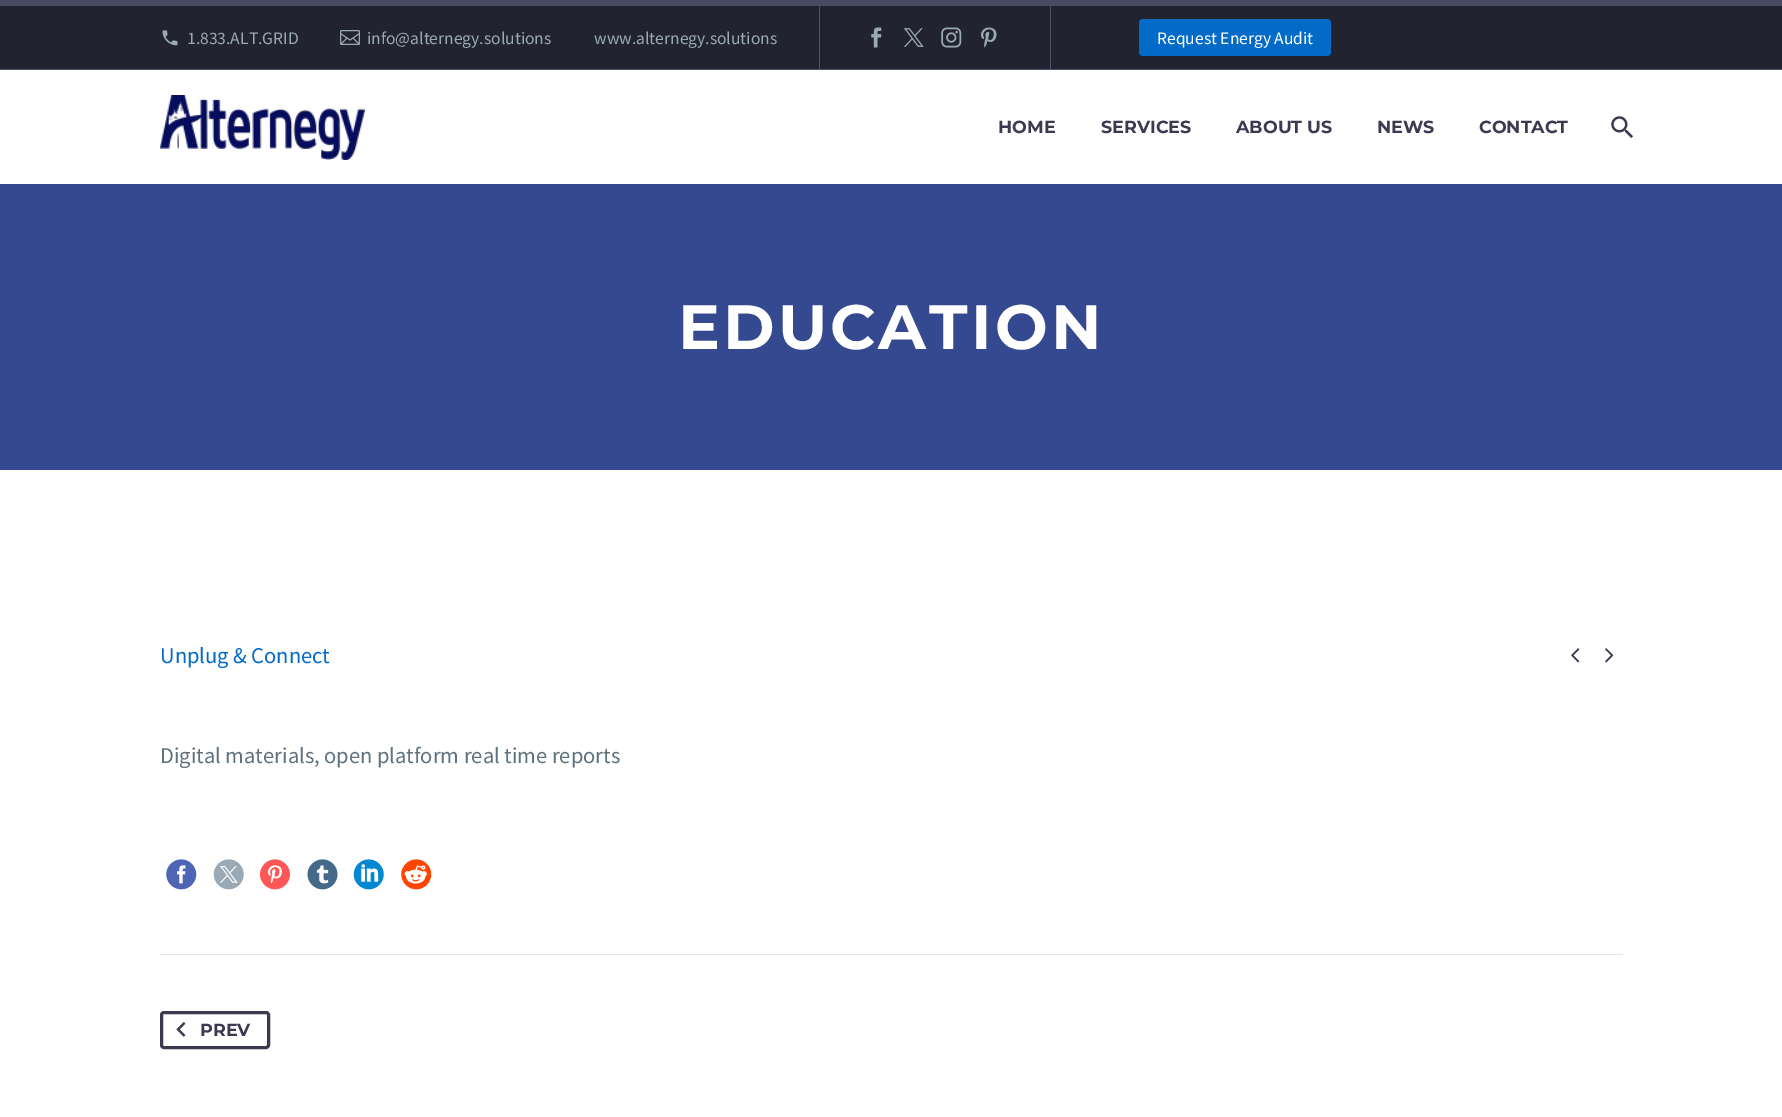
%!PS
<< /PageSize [1782 1117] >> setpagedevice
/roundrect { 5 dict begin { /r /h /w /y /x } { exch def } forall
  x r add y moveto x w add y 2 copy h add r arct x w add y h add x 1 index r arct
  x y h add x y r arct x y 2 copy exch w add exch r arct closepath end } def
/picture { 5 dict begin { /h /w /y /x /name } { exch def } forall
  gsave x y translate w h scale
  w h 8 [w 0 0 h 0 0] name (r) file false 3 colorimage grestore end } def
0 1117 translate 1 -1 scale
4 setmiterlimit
1 setgray
0 0 1782 1117 rectfill
0.129 0.137 0.192 setrgbcolor
0 6 1782 63 rectfill
0.278 0.294 0.38 setrgbcolor
0 0 1782 6 rectfill
0.318 0.329 0.424 setrgbcolor
0 69 1782 1 rectfill
(img1.rgb) 162 30 16 16 picture
/SourceSansPro-Regular [17.5 0 0 -17.5 0 0] selectfont
0.6 0.663 0.71 setrgbcolor
187 44 moveto (1.833.ALT.GRID) show
(img2.rgb) 340 30 20 15 picture
367 44 moveto (info@alternegy.solutions) show
594 44 moveto (www.alternegy.solutions) show
0.318 0.329 0.424 setrgbcolor
819 6 1 63 rectfill
(img3.rgb) 871 27 11 21 picture
(img4.rgb) 903 28 21 19 picture
(img5.rgb) 941 27 21 21 picture
(img6.rgb) 981 27 16 21 picture
1050 6 1 63 rectfill
0.008 0.42 0.78 setrgbcolor
1139 19 192 37 4 roundrect fill
1 setgray
1157 44 moveto (Request Energy Audit) show
(img7.rgb) 160 95 205 65 picture
/Montserrat-Bold [17.5 0 0 -17.5 0 0] selectfont
0.235 0.224 0.314 setrgbcolor
998 133 moveto (HOME) show
1101 133 moveto (SERVICES) show
1236 133 moveto (ABOUT US) show
1377 133 moveto (NEWS) show
1479 133 moveto (CONTACT) show
(img8.rgb) 1611 116 22 22 picture
0.208 0.286 0.569 setrgbcolor
0 184 1782 286 rectfill
/Montserrat-Bold [62.5 0 0 -62.5 0 0] selectfont
1 setgray
678 349 moveto 3.1 0 (EDUCATION) ashow
/SourceSansPro-Regular [22.5 0 0 -22.5 0 0] selectfont
0.008 0.42 0.78 setrgbcolor
160 663 moveto (Unplug & Connect) show
(img9.rgb) 1571 648 9 15 picture
(img10.rgb) 1605 648 9 15 picture
0.373 0.447 0.498 setrgbcolor
160 763 moveto (Digital materials, open platform real time reports) show
(img11.rgb) 166 859 31 31 picture
(img12.rgb) 213 859 31 31 picture
(img13.rgb) 260 859 30 31 picture
(img14.rgb) 307 859 31 31 picture
(img15.rgb) 353 859 31 31 picture
(img16.rgb) 401 859 31 31 picture
0.875 0.898 0.91 setrgbcolor
160 954 1463 1 rectfill
0.235 0.224 0.314 setrgbcolor
3 setlinewidth
161.5 1012.5 107 35 2.5 roundrect stroke
(img17.rgb) 176 1022 10 15 picture
/Montserrat-Bold [17.5 0 0 -17.5 0 0] selectfont
200 1036 moveto (PREV) show
showpage
